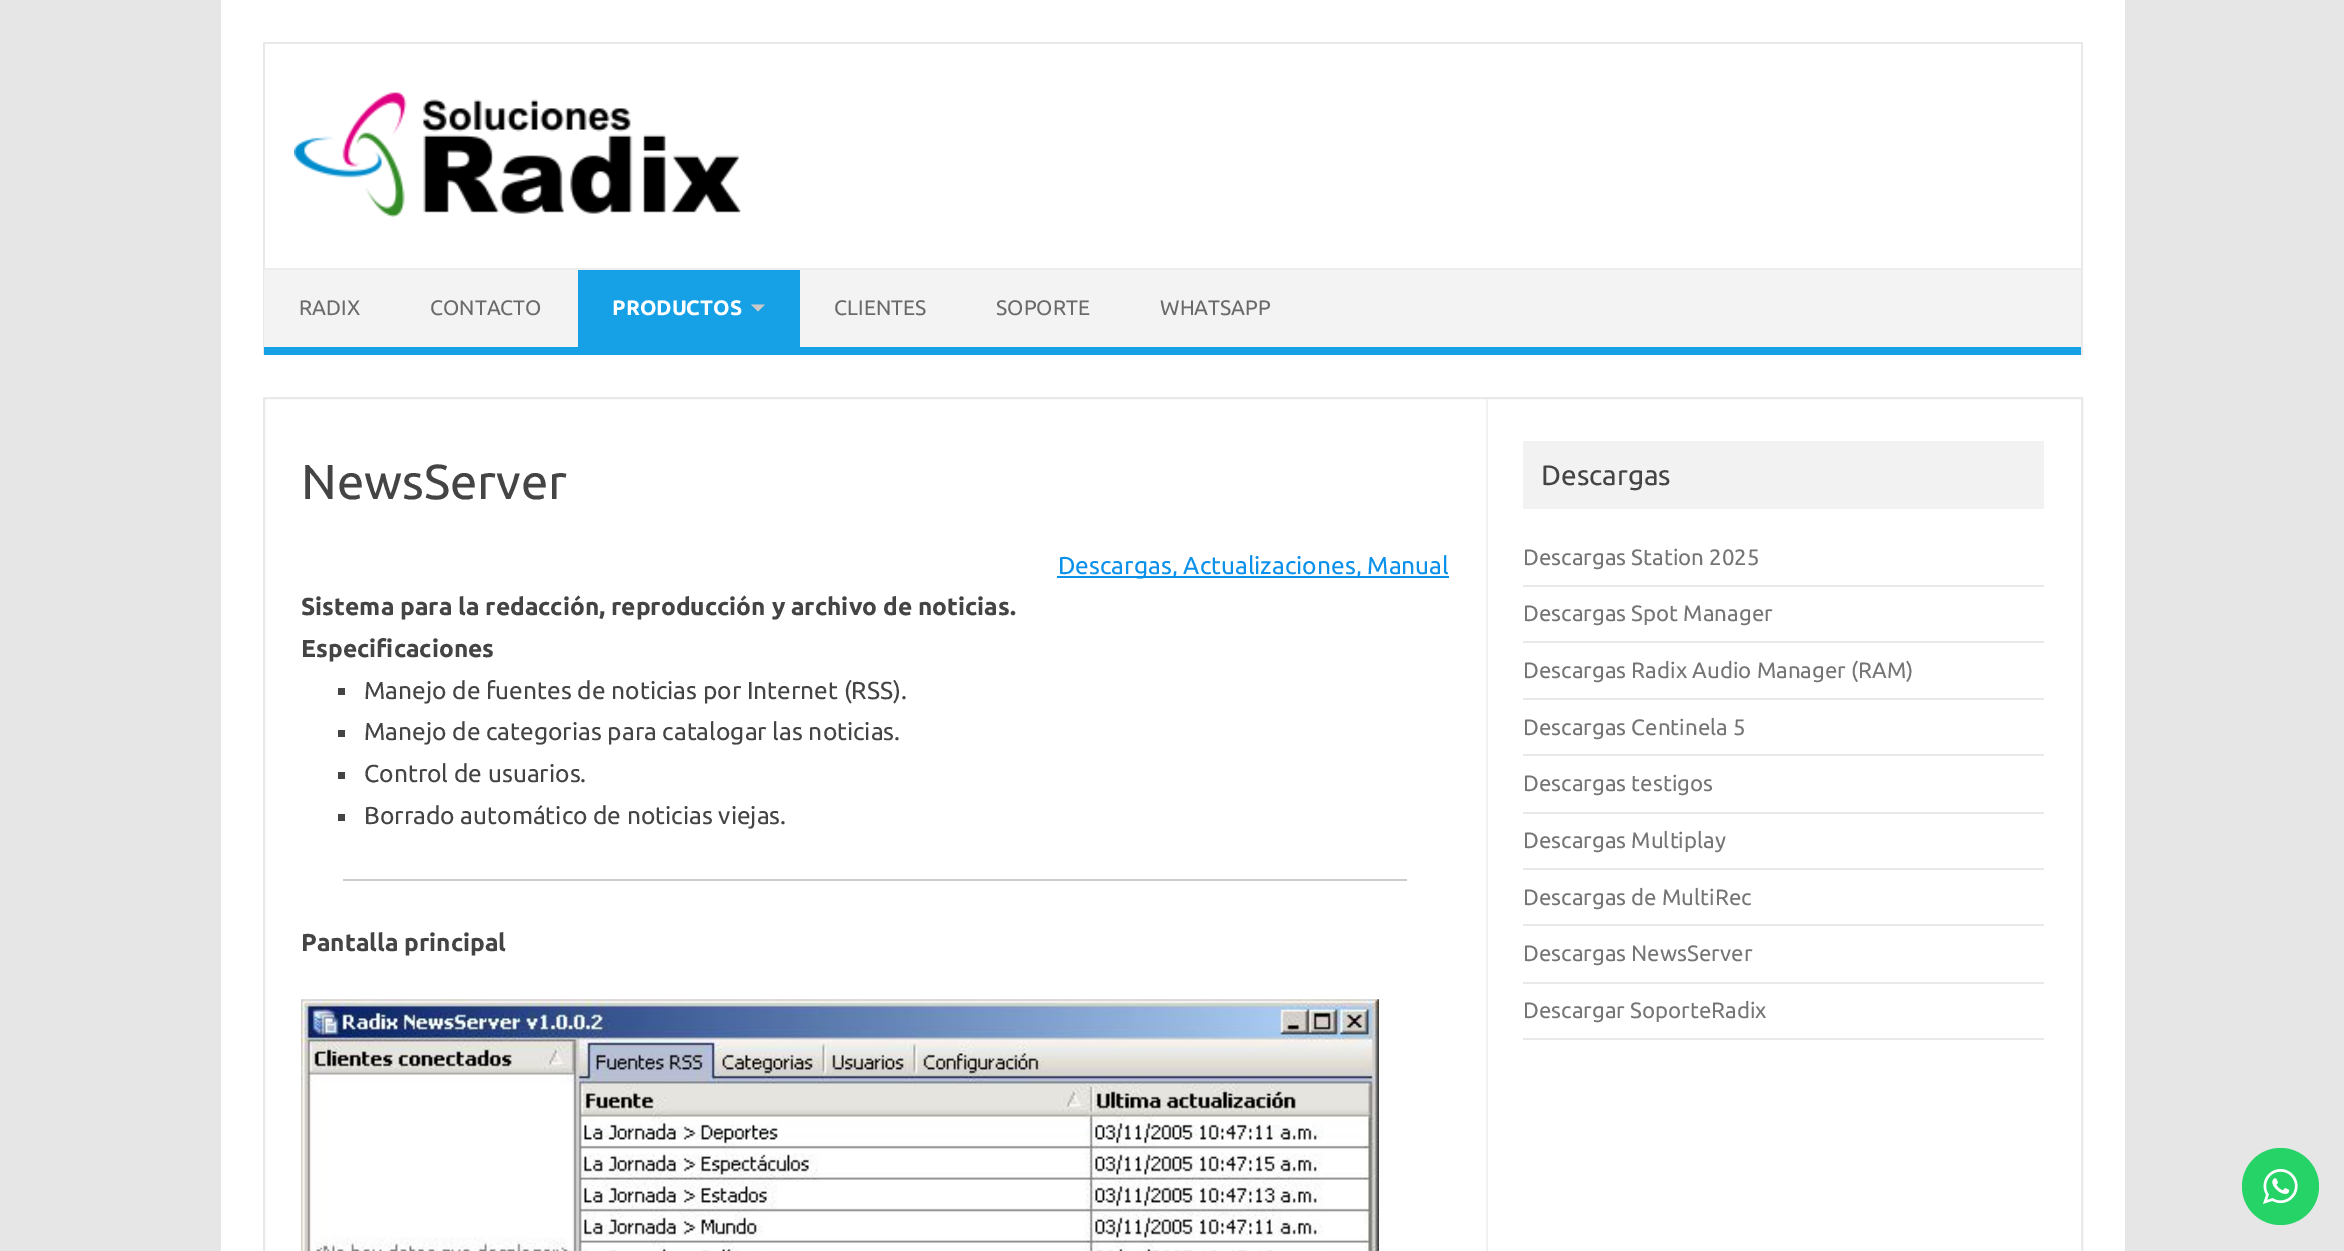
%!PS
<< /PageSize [2344 1251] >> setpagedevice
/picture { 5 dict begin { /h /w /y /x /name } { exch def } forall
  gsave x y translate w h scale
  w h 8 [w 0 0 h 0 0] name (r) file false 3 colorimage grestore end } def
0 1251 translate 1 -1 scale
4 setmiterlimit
0.902 setgray
0 0 2344 1251 rectfill
1 setgray
221 0 1904 1251 rectfill
0.914 setgray
263 42 1820 2 rectfill
2081 42 2 313 rectfill
263 42 2 313 rectfill
(img1.rgb) 294 92 447 125 picture
0.953 setgray
264 270 1817 77 rectfill
0.929 setgray
264 268 1817 2 rectfill
0.086 0.631 0.906 setrgbcolor
264 347 1817 8 rectfill
/Ubuntu-Regular [21 0 0 -21 0 0] selectfont
0.416 setgray
299 315 moveto (RADIX) show
430 315 moveto (CONTACTO) show
0.086 0.631 0.906 setrgbcolor
578 270 222 77 rectfill
/Ubuntu-Bold [21 0 0 -21 0 0] selectfont
1 setgray
612 315 moveto (PRODUCTOS) show
0.788 setgray
newpath 751 304.5 moveto 765 304.5 lineto 758 311.5 lineto closepath fill
/Ubuntu-Regular [21 0 0 -21 0 0] selectfont
0.416 setgray
834 315 moveto (CLIENTES) show
996 315 moveto (SOPORTE) show
1160 315 moveto (WHATSAPP) show
0.914 setgray
2 setlinewidth
264 398 1818 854 rectstroke
0.945 setgray
1486 399 2 852 rectfill
/Ubuntu-Regular [49 0 0 -49 0 0] selectfont
0.267 setgray
301 499 moveto (NewsServer) show
0.043 0.569 0.918 setrgbcolor
1057 576 392 2 rectfill
/Ubuntu-Regular [24.5 0 0 -24.5 0 0] selectfont
1058 574 moveto (Descargas, Actualizaciones, Manual) show
/Ubuntu-Bold [24.5 0 0 -24.5 0 0] selectfont
0.267 setgray
301 615 moveto (Sistema para la redacción, reproducción y archivo de noticias.) show
301 657 moveto (Especificaciones) show
338 688 7 7 rectfill
/Ubuntu-Regular [24.5 0 0 -24.5 0 0] selectfont
364 699 moveto (Manejo de fuentes de noticias por Internet \(RSS\).) show
338 730 7 7 rectfill
364 740 moveto (Manejo de categorias para catalogar las noticias.) show
338 772 7 7 rectfill
364 782 moveto (Control de usuarios.) show
338 814 7 7 rectfill
364 824 moveto (Borrado automático de noticias viejas.) show
0.8 setgray
343 879 1064 2 rectfill
/Ubuntu-Bold [24.5 0 0 -24.5 0 0] selectfont
0.267 setgray
301 951 moveto (Pantalla principal) show
(img2.rgb) 301 999 1078 252 picture
0.949 setgray
1523 441 521 68 rectfill
/Ubuntu-Regular [28 0 0 -28 0 0] selectfont
0.267 setgray
1541 485 moveto (Descargas) show
0.914 setgray
1523 585 521 2 rectfill
/Ubuntu-Regular [22.25 0 0 -22.25 0 0] selectfont
0.459 setgray
1523 565 moveto (Descargas Station 2025) show
0.914 setgray
1523 641 521 2 rectfill
0.459 setgray
1523 621 moveto (Descargas Spot Manager) show
0.914 setgray
1523 698 521 2 rectfill
0.459 setgray
1523 678 moveto (Descargas Radix Audio Manager \(RAM\)) show
0.914 setgray
1523 754 521 2 rectfill
0.459 setgray
1523 735 moveto (Descargas Centinela 5) show
0.914 setgray
1523 812 521 2 rectfill
0.459 setgray
1523 791 moveto (Descargas testigos) show
0.914 setgray
1523 868 521 2 rectfill
0.459 setgray
1523 848 moveto (Descargas Multiplay) show
0.914 setgray
1523 924 521 2 rectfill
0.459 setgray
1523 905 moveto (Descargas de MultiRec) show
0.914 setgray
1523 982 521 2 rectfill
0.459 setgray
1523 961 moveto (Descargas NewsServer) show
0.914 setgray
1523 1038 521 2 rectfill
0.459 setgray
1523 1018 moveto (Descargar SoporteRadix) show
0.145 0.827 0.4 setrgbcolor
newpath 2280.5 1186.5 38.5 0 360 arc closepath fill
(img3.rgb) 2263 1169 35 35 picture
showpage
